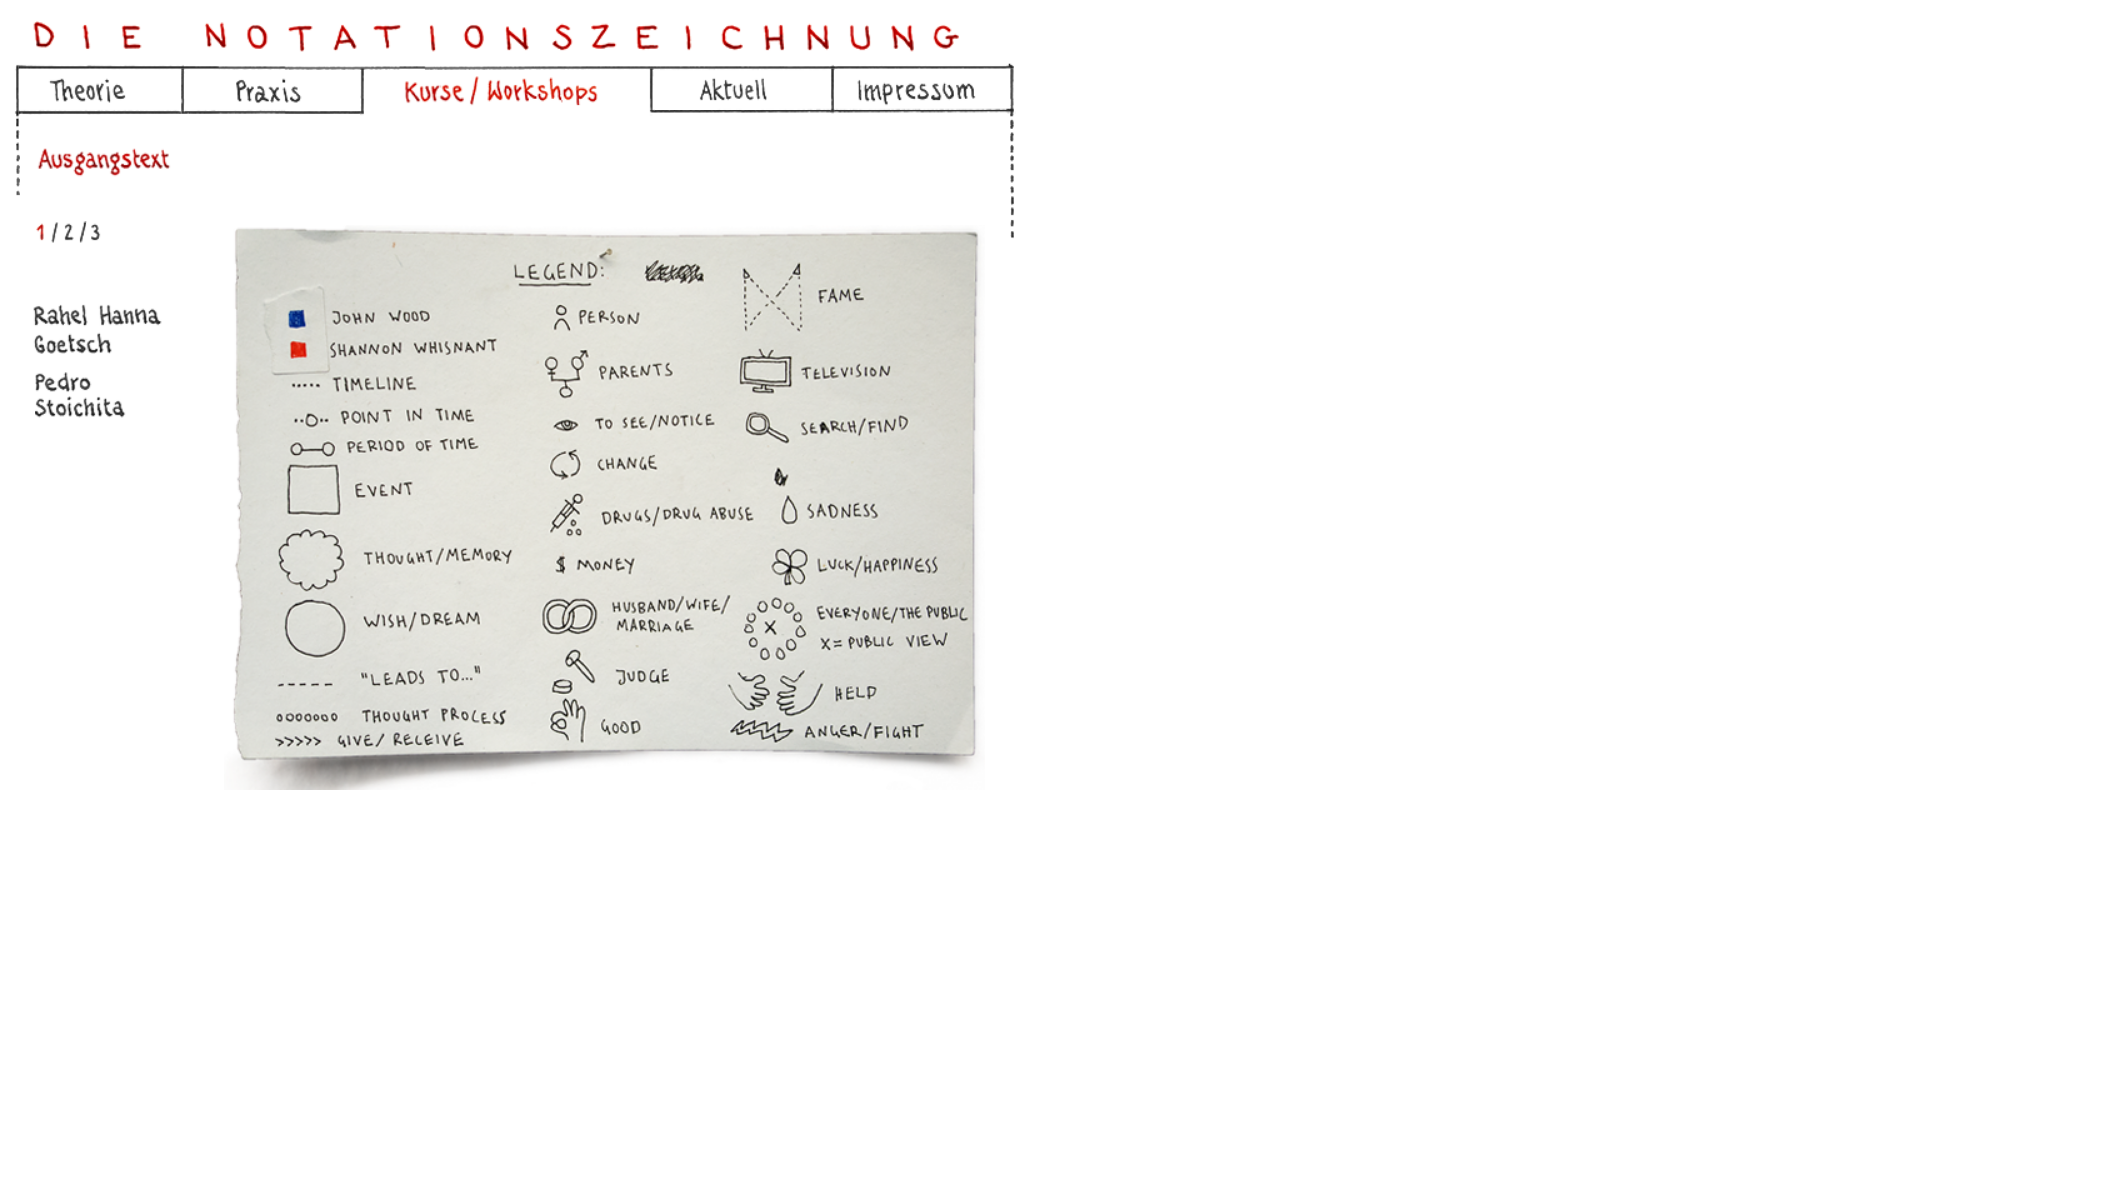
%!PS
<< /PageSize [2102 1198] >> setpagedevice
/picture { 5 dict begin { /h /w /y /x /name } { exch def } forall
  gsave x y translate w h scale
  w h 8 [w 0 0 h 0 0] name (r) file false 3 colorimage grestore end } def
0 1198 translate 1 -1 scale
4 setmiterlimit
1 setgray
0 0 2102 1198 rectfill
(img1.rgb) 33 21 926 31 picture
(img2.rgb) 14 64 5 132 picture
(img3.rgb) 18 63 996 6 picture
(img4.rgb) 18 68 637 2 picture
(img5.rgb) 655 68 175 42 picture
(img6.rgb) 830 68 5 46 picture
(img7.rgb) 835 68 175 42 picture
(img8.rgb) 1010 68 6 171 picture
(img9.rgb) 18 70 2 126 picture
(img10.rgb) 20 78 159 34 picture
(img11.rgb) 181 70 4 44 picture
(img12.rgb) 185 78 117 34 picture
(img13.rgb) 360 70 4 46 picture
(img14.rgb) 404 76 194 30 picture
(img15.rgb) 649 70 6 46 picture
(img16.rgb) 655 110 175 3 picture
(img17.rgb) 835 110 175 4 picture
(img18.rgb) 20 111 162 4 picture
(img19.rgb) 185 111 175 3 picture
(img20.rgb) 37 148 134 29 picture
(img21.rgb) 83 221 4 2 picture
(img22.rgb) 36 223 8 18 picture
(img23.rgb) 51 222 8 21 picture
(img24.rgb) 64 223 10 18 picture
(img25.rgb) 79 222 8 21 picture
(img26.rgb) 86 222 15 19 picture
(img27.rgb) 224 225 761 565 picture
(img28.rgb) 33 304 129 50 picture
(img29.rgb) 35 372 91 46 picture
showpage
